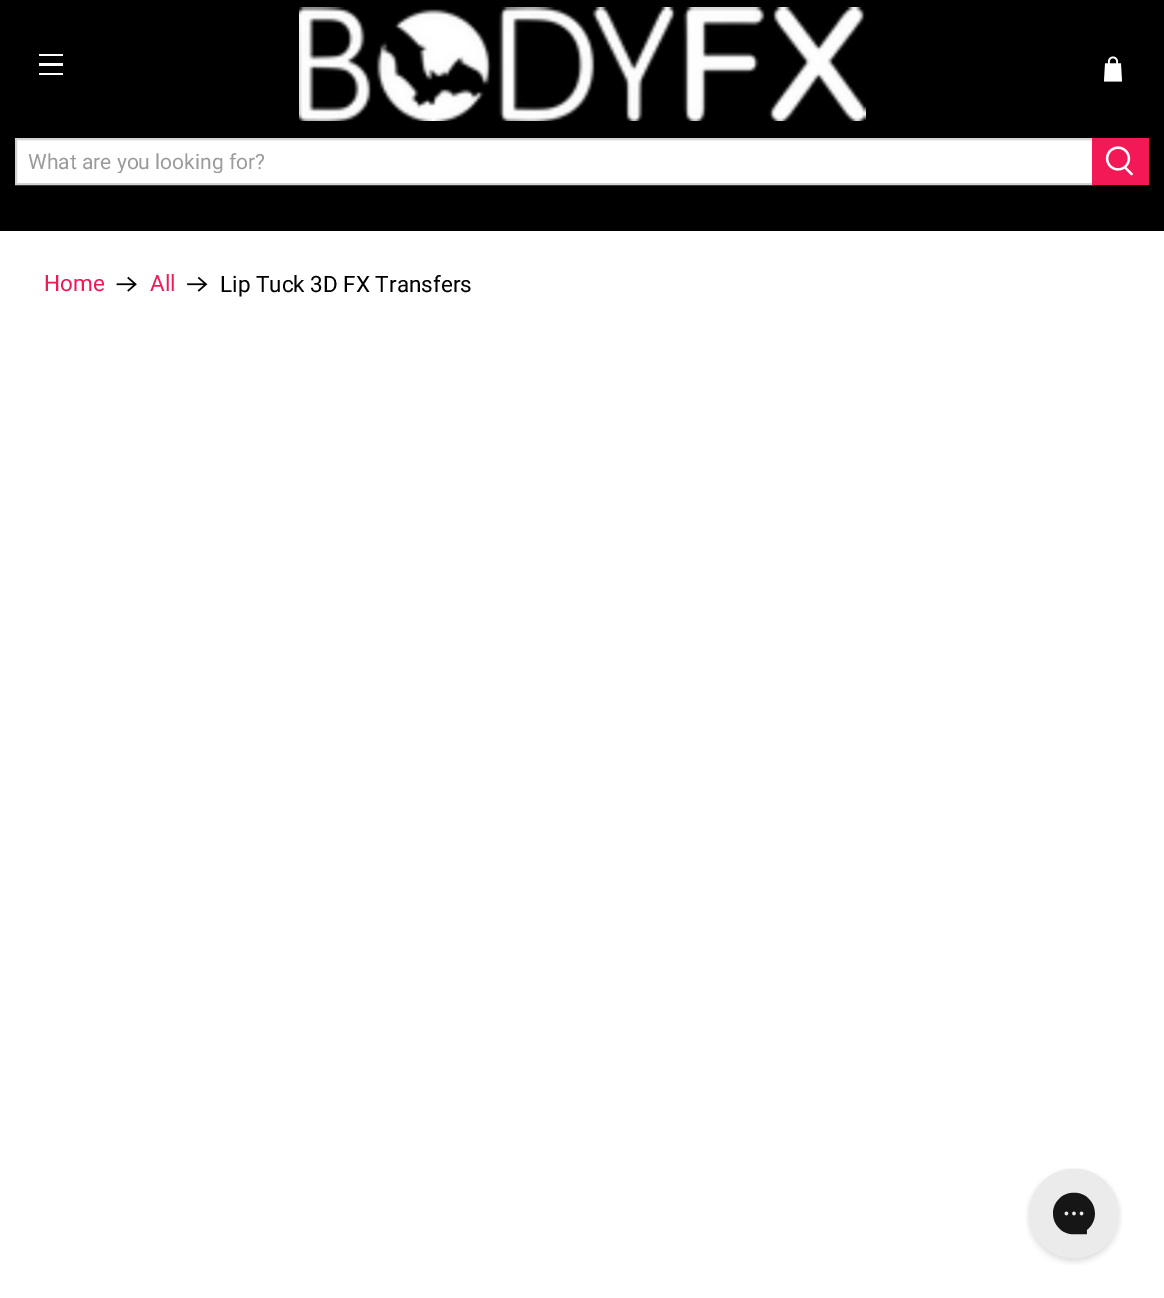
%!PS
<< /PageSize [1164 1298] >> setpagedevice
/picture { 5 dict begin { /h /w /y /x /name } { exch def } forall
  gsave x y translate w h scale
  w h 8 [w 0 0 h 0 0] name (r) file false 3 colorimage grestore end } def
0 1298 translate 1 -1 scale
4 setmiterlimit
1 setgray
0 0 1164 1298 rectfill
0 setgray
0 0 1164 231 rectfill
1 setgray
39 54 24 2 rectfill
39 63 24 3 rectfill
39 73 24 2 rectfill
(img1.rgb) 299 7 567 114 picture
(img2.rgb) 1103 56 20 26 picture
newpath 16 139 moveto 1093 139 lineto 1093 184 lineto 16 184 lineto closepath gsave fill grestore
0.827 setgray
2 setlinewidth
stroke
gsave
29 149 1051 24 rectclip
/Roboto-Regular [21 0 0 -21 0 0] selectfont
0.608 setgray
28 169 moveto (What are you looking for?) show
grestore
0.953 0.098 0.337 setrgbcolor
1092 138 57 47 rectfill
(img3.rgb) 1105 146 29 30 picture
/Roboto-Regular [22.5 0 0 -22.5 0 0] selectfont
44 291 moveto (Home) show
(img4.rgb) 116 276 21 16 picture
150 291 moveto (All) show
(img5.rgb) 187 276 21 16 picture
0 setgray
220 292 moveto (Lip Tuck 3D FX Transfers) show
(img6.rgb) 1026 1168 96 97 picture
showpage
